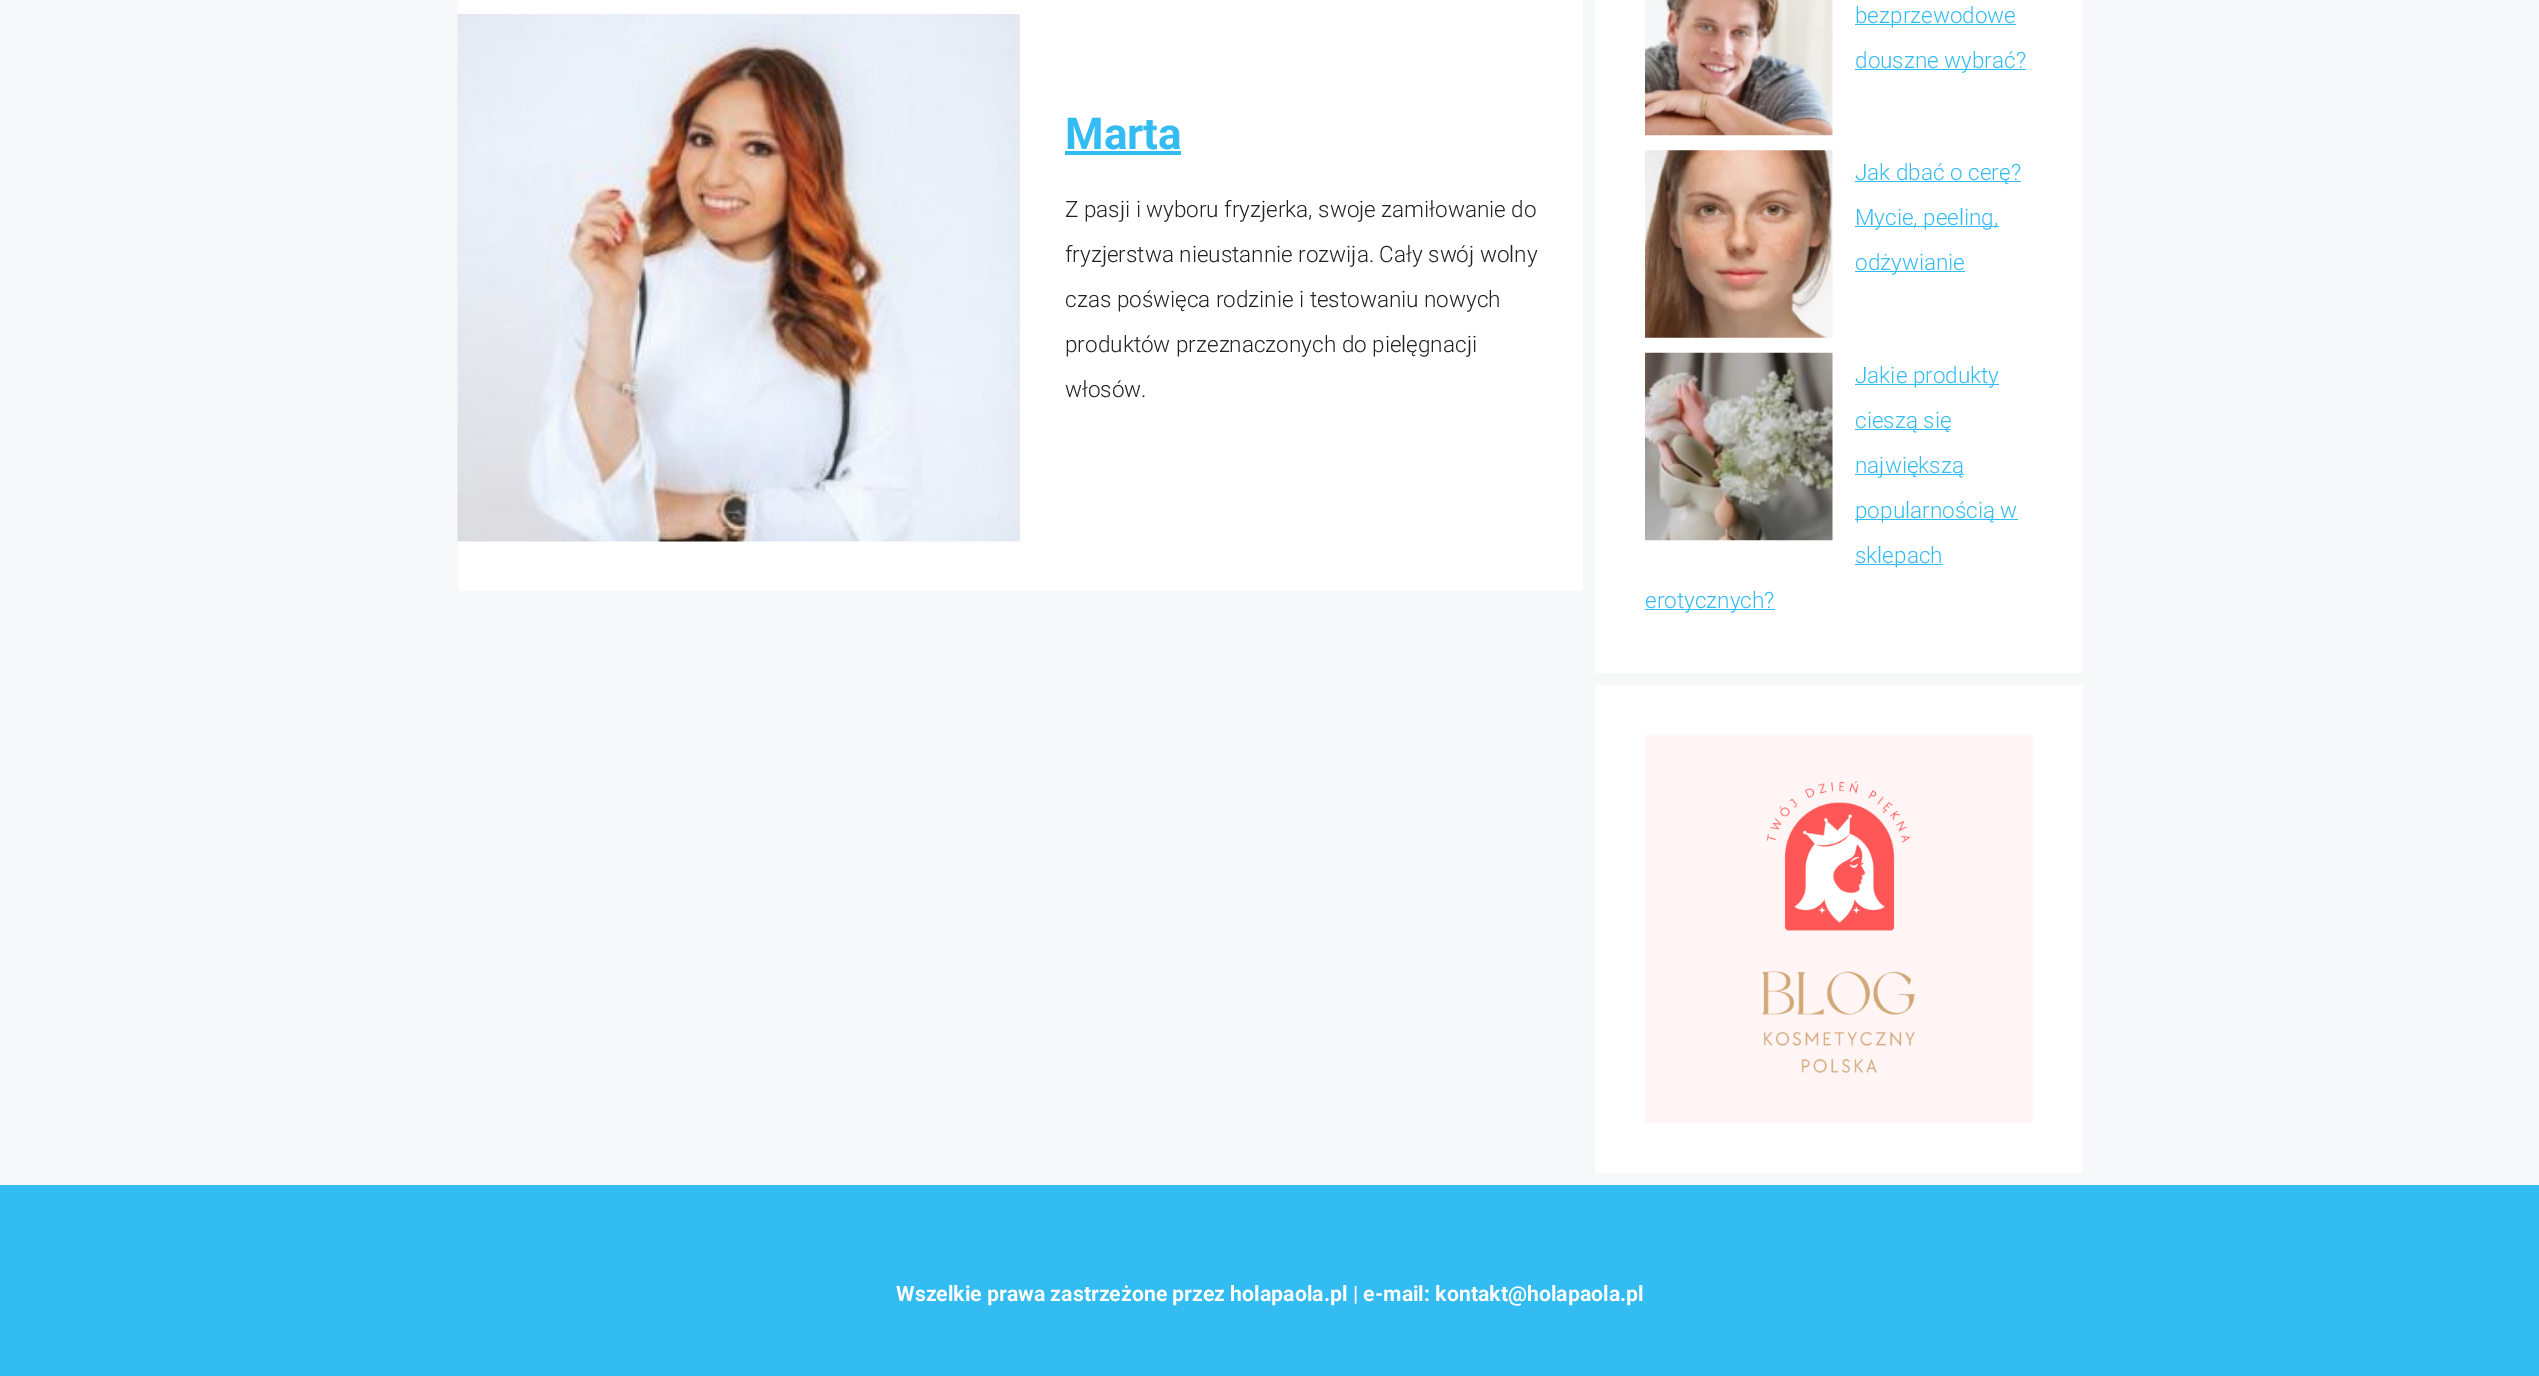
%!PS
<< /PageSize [2539 1376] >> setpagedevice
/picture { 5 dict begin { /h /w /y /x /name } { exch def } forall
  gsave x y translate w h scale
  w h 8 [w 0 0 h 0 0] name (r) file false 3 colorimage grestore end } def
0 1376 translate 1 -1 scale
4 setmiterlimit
0.969 0.973 0.976 setrgbcolor
0 0 2539 1376 rectfill
1 setgray
458 0 1125 591 rectfill
(img1.rgb) 457 14 563 528 picture
/Roboto-Bold [44 0 0 -44 0 0] selectfont
0.2 0.737 0.949 setrgbcolor
1065 149 moveto (Marta) show
1065 151 116 4 rectfill
/Roboto-Light [22.5 0 0 -22.5 0 0] selectfont
0.133 setgray
1065 217 moveto (Z pasji i wyboru fryzjerka, swoje zamiłowanie do) show
1065 262 moveto (fryzjerstwa nieustannie rozwija. Cały swój wolny) show
1065 307 moveto (czas poświęca rodzinie i testowaniu nowych) show
1065 352 moveto (produktów przeznaczonych do pielęgnacji) show
1065 397 moveto (włosów.) show
1 setgray
1595 0 488 673 rectfill
(img2.rgb) 1645 0 188 136 picture
0.2 0.737 0.949 setrgbcolor
1855 24 161 1 rectfill
1855 23 moveto (bezprzewodowe) show
1855 69 171 1 rectfill
1855 68 moveto (douszne wybrać?) show
(img3.rgb) 1645 150 188 188 picture
1855 181 166 1 rectfill
1855 180 moveto (Jak dbać o cerę?) show
1855 226 144 1 rectfill
1855 225 moveto (Mycie, peeling,) show
1855 271 110 1 rectfill
1855 270 moveto (odżywianie) show
(img4.rgb) 1645 352 188 189 picture
1855 384 144 1 rectfill
1855 383 moveto (Jakie produkty) show
1855 429 96 1 rectfill
1855 428 moveto (cieszą się) show
1855 474 109 1 rectfill
1855 473 moveto (największą) show
1855 519 163 1 rectfill
1855 518 moveto (popularnością w) show
1855 564 88 1 rectfill
1855 563 moveto (sklepach) show
1645 609 130 1 rectfill
1645 608 moveto (erotycznych?) show
1 setgray
1595 685 488 488 rectfill
(img5.rgb) 1645 735 388 388 picture
0.2 0.737 0.949 setrgbcolor
0 1185 2539 191 rectfill
/Roboto-Bold [21.25 0 0 -21.25 0 0] selectfont
1 setgray
896 1301 moveto (Wszelkie prawa zastrzeżone przez holapaola.pl | e-mail: kontakt@holapaola.pl) show
showpage
